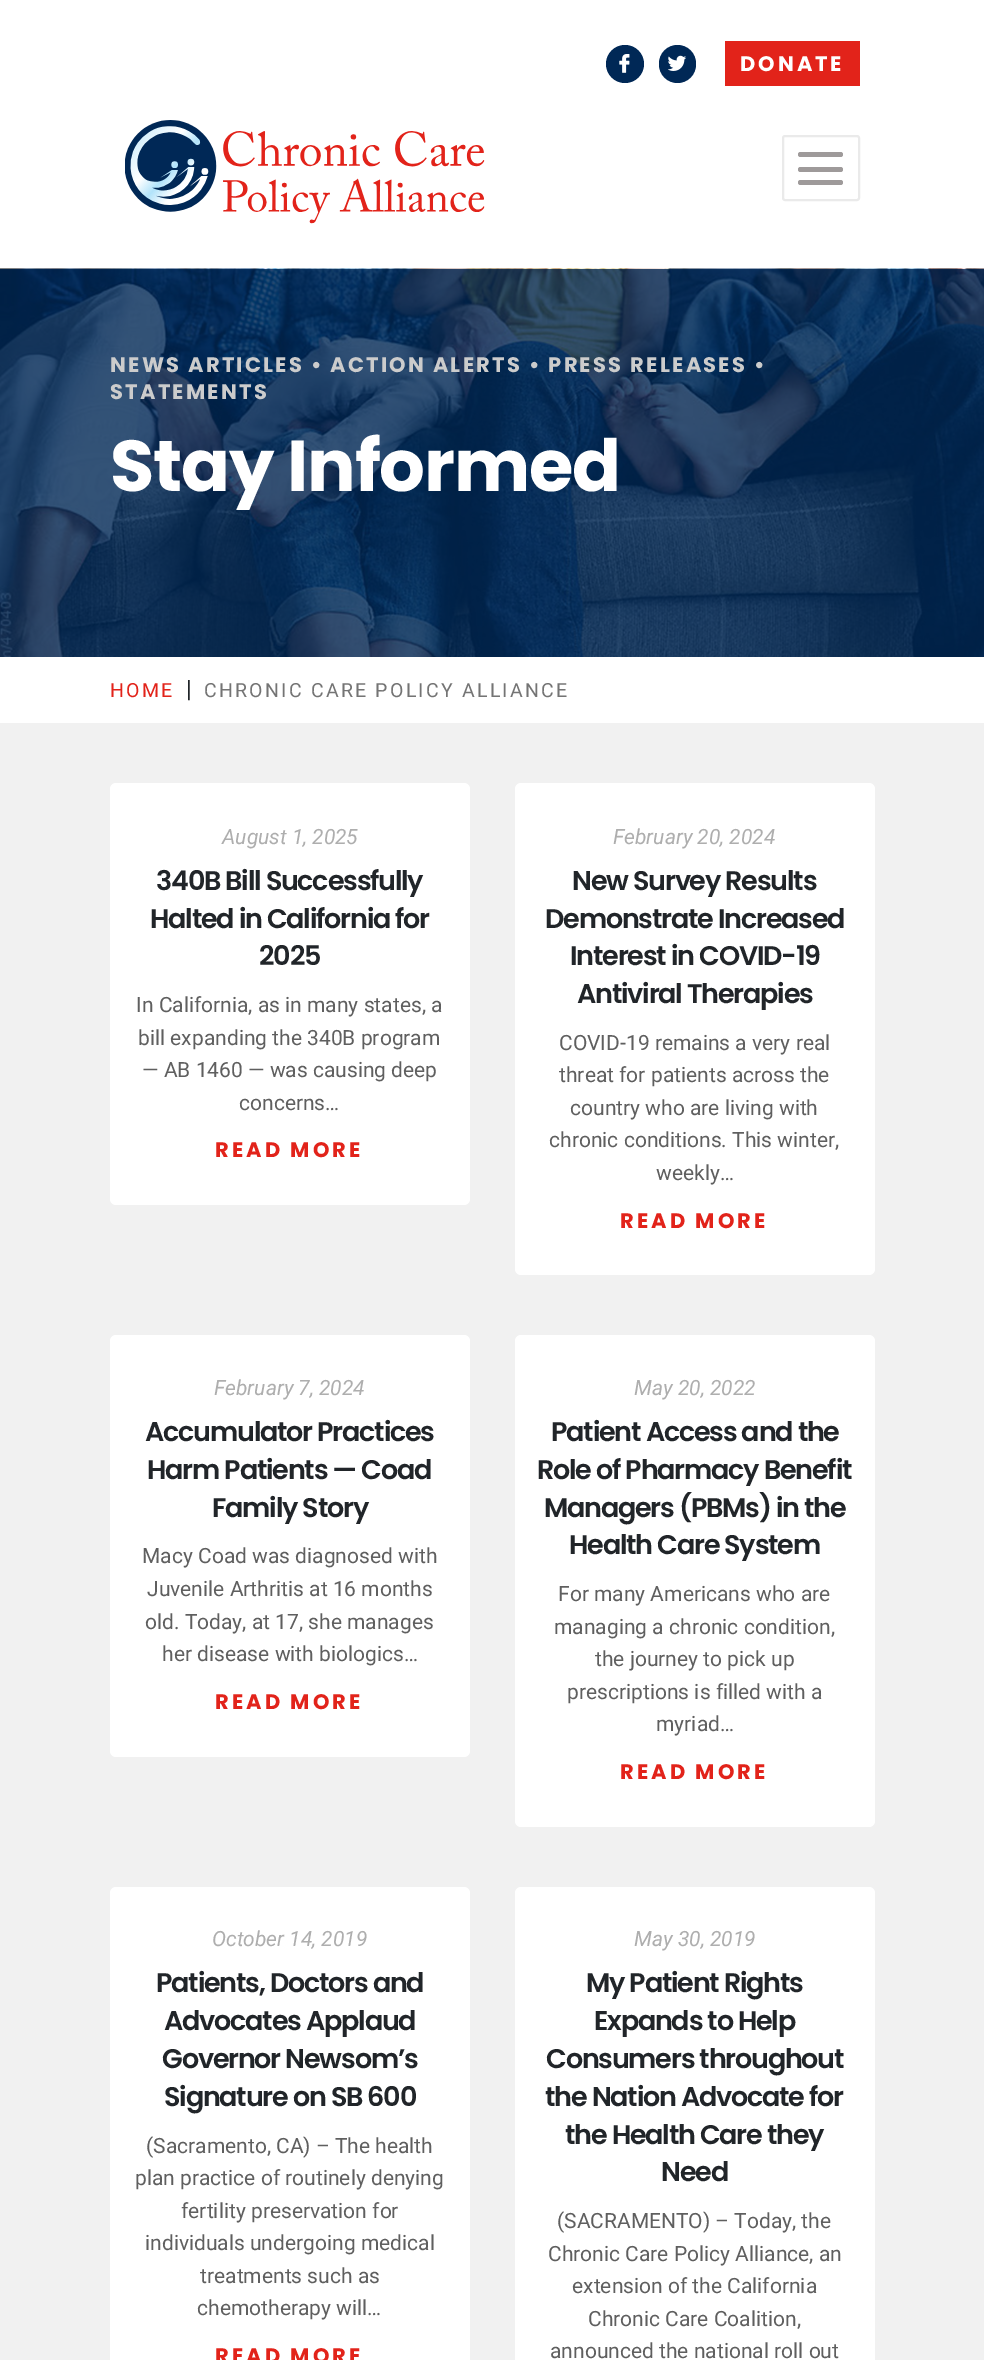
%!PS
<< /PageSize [984 2360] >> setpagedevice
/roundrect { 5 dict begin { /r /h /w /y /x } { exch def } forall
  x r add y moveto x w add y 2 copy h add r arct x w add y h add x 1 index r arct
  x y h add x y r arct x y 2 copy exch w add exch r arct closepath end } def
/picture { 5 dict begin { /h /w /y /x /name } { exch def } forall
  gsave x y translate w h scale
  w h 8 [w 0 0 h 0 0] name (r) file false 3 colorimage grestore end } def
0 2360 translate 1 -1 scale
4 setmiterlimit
1 setgray
0 0 984 2360 rectfill
0 0.157 0.337 setrgbcolor
newpath 625 64 19 0 360 arc closepath fill
(img1.rgb) 619 54 11 19 picture
659 45 37 38 18.5 roundrect fill
(img2.rgb) 668 55 19 16 picture
0.886 0.137 0.102 setrgbcolor
725 41 135 45 rectfill
/Poppins-Bold [21 0 0 -21 0 0] selectfont
1 setgray
740 71 moveto 3 0 (DONATE) ashow
(img3.rgb) 125 120 360 104 picture
0.918 setgray
2 setlinewidth
783 136 76 64 2 roundrect stroke
0.62 0.604 0.604 setrgbcolor
798 152 45 5 2.5 roundrect fill
798 167 45 5 2.5 roundrect fill
798 180 45 5 2.5 roundrect fill
(img4.rgb) 0 268 984 389 picture
0.8 setgray
110 372 moveto 2.25 0 (NEWS ARTICLES • ACTION ALERTS • PRESS RELEASES •) ashow
110 399 moveto 2.25 0 (STATEMENTS) ashow
/Poppins-Bold [72 0 0 -72 0 0] selectfont
1 setgray
110 491 moveto -1.2 0 (Stay Informed) ashow
/Roboto-Regular [19.5 0 0 -19.5 0 0] selectfont
0.886 0.137 0.102 setrgbcolor
110 697 moveto 2.25 0 (HOME) ashow
/Roboto-Regular [24 0 0 -24 0 0] selectfont
0.129 0.145 0.161 setrgbcolor
186 697 moveto (|) show
/Roboto-Regular [19.5 0 0 -19.5 0 0] selectfont
0.455 setgray
204 697 moveto 2.25 0 (CHRONIC CARE POLICY ALLIANCE) ashow
0.945 setgray
0 723 984 1637 rectfill
1 setgray
110 783 360 422 6 roundrect fill
/Roboto-Italic [21 0 0 -21 0 0] selectfont
0.682 setgray
222 844 moveto (August 1, 2025) show
/Poppins-SemiBold [27 0 0 -27 0 0] selectfont
0.129 0.145 0.161 setrgbcolor
156 890 moveto -1.2 0 (340B Bill Successfully) ashow
150 928 moveto -1.2 0 (Halted in California for) ashow
259 965 moveto -1.2 0 (2025) ashow
/Roboto-Regular [21 0 0 -21 0 0] selectfont
0.373 setgray
136 1012 moveto (In California, as in many states, a) show
138 1045 moveto (bill expanding the 340B program) show
142 1077 moveto (— AB 1460 — was causing deep) show
239 1110 moveto (concerns…) show
/Poppins-Bold [21 0 0 -21 0 0] selectfont
0.886 0.137 0.102 setrgbcolor
215 1157 moveto 3 0 (READ MORE) ashow
1 setgray
515 783 360 492 6 roundrect fill
/Roboto-Italic [21 0 0 -21 0 0] selectfont
0.682 setgray
613 844 moveto (February 20, 2024) show
/Poppins-SemiBold [27 0 0 -27 0 0] selectfont
0.129 0.145 0.161 setrgbcolor
572 890 moveto -1.2 0 (New Survey Results) ashow
545 928 moveto -1.2 0 (Demonstrate Increased) ashow
570 965 moveto -1.2 0 (Interest in COVID-19) ashow
577 1003 moveto -1.2 0 (Antiviral Therapies) ashow
/Roboto-Regular [21 0 0 -21 0 0] selectfont
0.373 setgray
559 1050 moveto (COVID-19 remains a very real) show
559 1082 moveto (threat for patients across the) show
570 1115 moveto (country who are living with) show
549 1147 moveto (chronic conditions. This winter,) show
656 1180 moveto (weekly…) show
/Poppins-Bold [21 0 0 -21 0 0] selectfont
0.886 0.137 0.102 setrgbcolor
620 1228 moveto 3 0 (READ MORE) ashow
1 setgray
110 1335 360 422 6 roundrect fill
/Roboto-Italic [21 0 0 -21 0 0] selectfont
0.682 setgray
214 1395 moveto (February 7, 2024) show
/Poppins-SemiBold [27 0 0 -27 0 0] selectfont
0.129 0.145 0.161 setrgbcolor
145 1441 moveto -1.2 0 (Accumulator Practices) ashow
147 1479 moveto -1.2 0 (Harm Patients — Coad) ashow
212 1517 moveto -1.2 0 (Family Story) ashow
/Roboto-Regular [21 0 0 -21 0 0] selectfont
0.373 setgray
142 1563 moveto (Macy Coad was diagnosed with) show
147 1596 moveto (Juvenile Arthritis at 16 months) show
145 1629 moveto (old. Today, at 17, she manages) show
162 1661 moveto (her disease with biologics…) show
/Poppins-Bold [21 0 0 -21 0 0] selectfont
0.886 0.137 0.102 setrgbcolor
215 1709 moveto 3 0 (READ MORE) ashow
1 setgray
515 1335 360 492 6 roundrect fill
/Roboto-Italic [21 0 0 -21 0 0] selectfont
0.682 setgray
634 1395 moveto (May 20, 2022) show
/Poppins-SemiBold [27 0 0 -27 0 0] selectfont
0.129 0.145 0.161 setrgbcolor
551 1441 moveto -1.2 0 (Patient Access and the) ashow
537 1479 moveto -1.2 0 (Role of Pharmacy Benefit) ashow
544 1517 moveto -1.2 0 (Managers \(PBMs\) in the) ashow
569 1554 moveto -1.2 0 (Health Care System) ashow
/Roboto-Regular [21 0 0 -21 0 0] selectfont
0.373 setgray
558 1601 moveto (For many Americans who are) show
554 1634 moveto (managing a chronic condition,) show
595 1666 moveto (the journey to pick up) show
567 1699 moveto (prescriptions is filled with a) show
656 1731 moveto (myriad…) show
/Poppins-Bold [21 0 0 -21 0 0] selectfont
0.886 0.137 0.102 setrgbcolor
620 1779 moveto 3 0 (READ MORE) ashow
1 setgray
110 1887 360 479 6 roundrect fill
/Roboto-Italic [21 0 0 -21 0 0] selectfont
0.682 setgray
212 1946 moveto (October 14, 2019) show
/Poppins-SemiBold [27 0 0 -27 0 0] selectfont
0.129 0.145 0.161 setrgbcolor
156 1992 moveto -1.2 0 (Patients, Doctors and) ashow
164 2030 moveto -1.2 0 (Advocates Applaud) ashow
162 2068 moveto -1.2 0 (Governor Newsom’s) ashow
164 2106 moveto -1.2 0 (Signature on SB 600) ashow
/Roboto-Regular [21 0 0 -21 0 0] selectfont
0.373 setgray
146 2153 moveto (\(Sacramento, CA\) – The health) show
135 2185 moveto (plan practice of routinely denying) show
181 2218 moveto (fertility preservation for) show
145 2250 moveto (individuals undergoing medical) show
200 2283 moveto (treatments such as) show
197 2315 moveto (chemotherapy will…) show
/Poppins-Bold [21 0 0 -21 0 0] selectfont
0.886 0.137 0.102 setrgbcolor
215 2363 moveto 3 0 (READ MORE) ashow
1 setgray
515 1887 360 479 6 roundrect fill
/Roboto-Italic [21 0 0 -21 0 0] selectfont
0.682 setgray
634 1946 moveto (May 30, 2019) show
/Poppins-SemiBold [27 0 0 -27 0 0] selectfont
0.129 0.145 0.161 setrgbcolor
586 1992 moveto -1.2 0 (My Patient Rights) ashow
594 2030 moveto -1.2 0 (Expands to Help) ashow
546 2068 moveto -1.2 0 (Consumers throughout) ashow
545 2106 moveto -1.2 0 (the Nation Advocate for) ashow
565 2144 moveto -1.2 0 (the Health Care they) ashow
661 2181 moveto -1.2 0 (Need) ashow
/Roboto-Regular [21 0 0 -21 0 0] selectfont
0.373 setgray
557 2228 moveto (\(SACRAMENTO\) – Today, the) show
548 2261 moveto (Chronic Care Policy Alliance, an) show
572 2293 moveto (extension of the California) show
588 2326 moveto (Chronic Care Coalition,) show
550 2358 moveto (announced the national roll out) show
showpage
